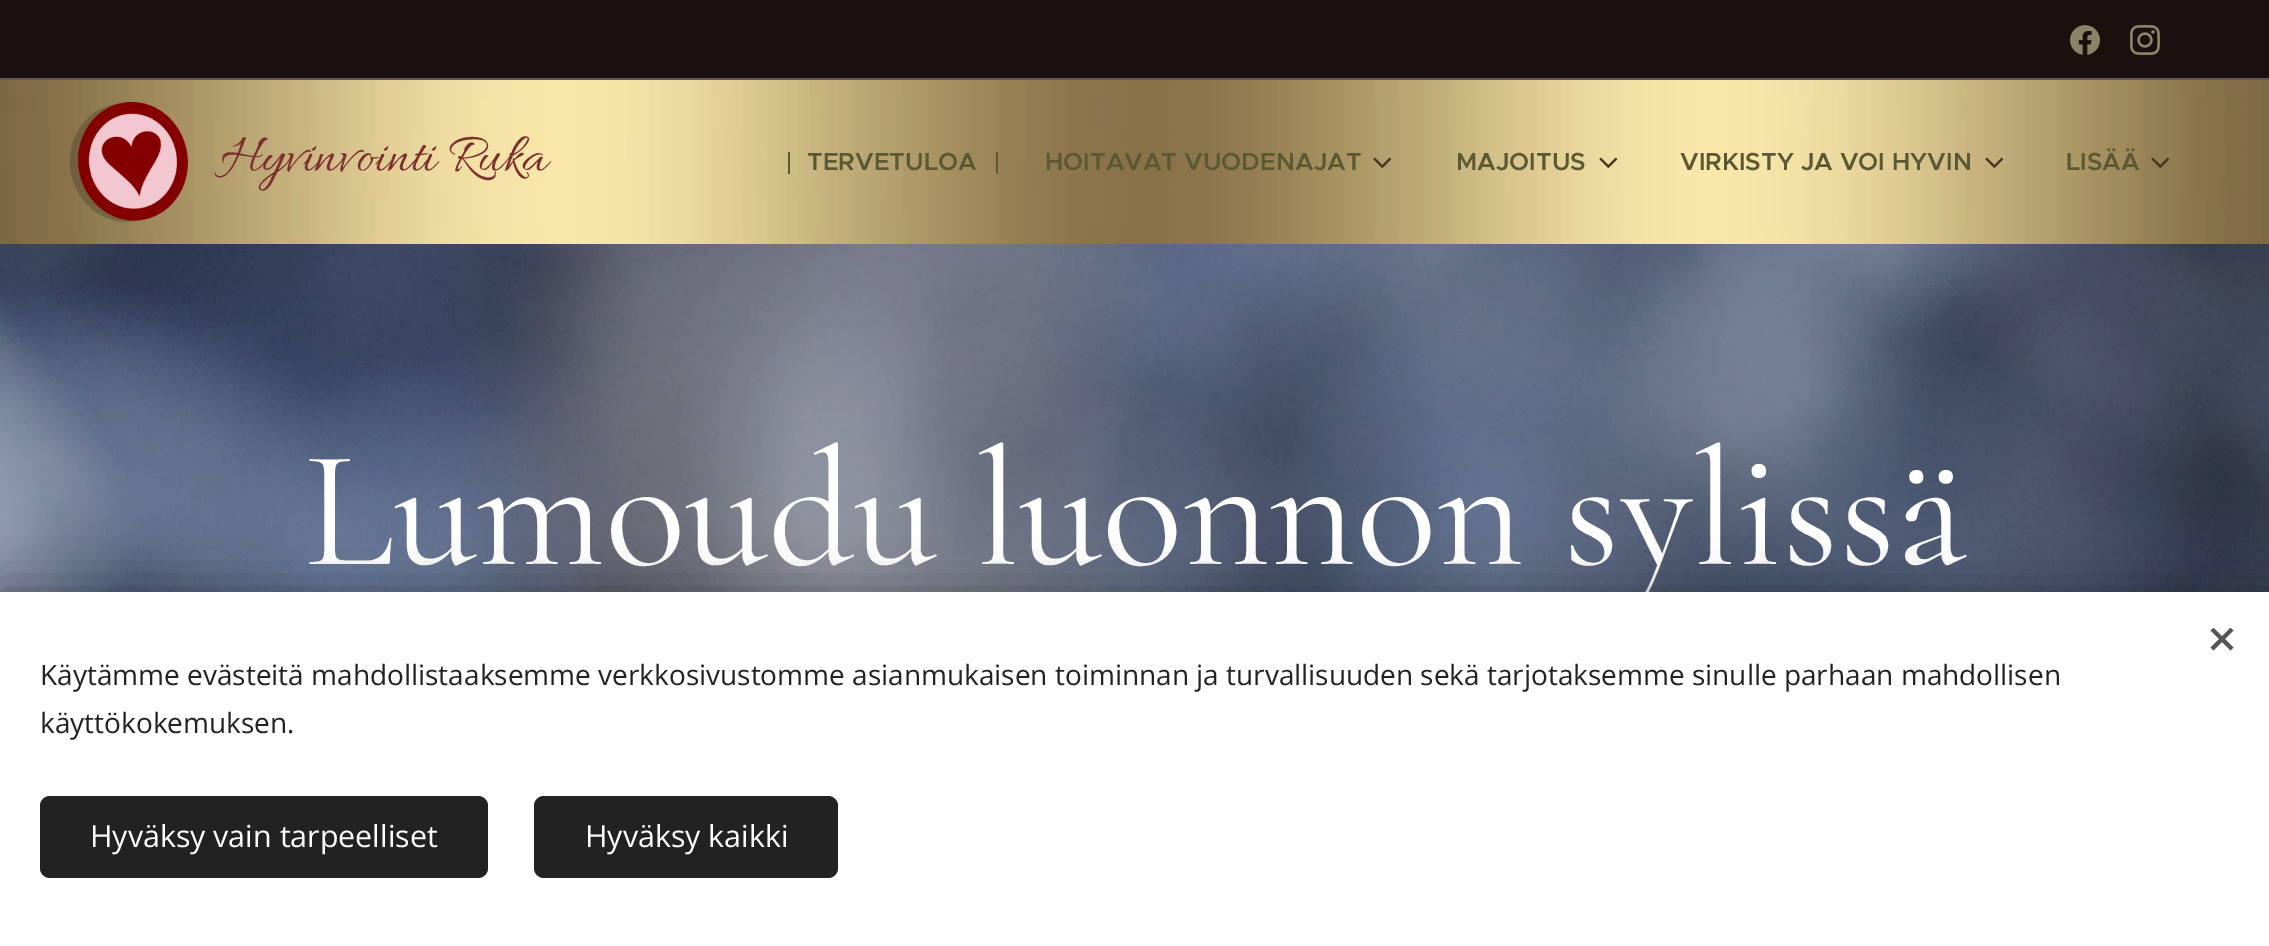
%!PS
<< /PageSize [2269 946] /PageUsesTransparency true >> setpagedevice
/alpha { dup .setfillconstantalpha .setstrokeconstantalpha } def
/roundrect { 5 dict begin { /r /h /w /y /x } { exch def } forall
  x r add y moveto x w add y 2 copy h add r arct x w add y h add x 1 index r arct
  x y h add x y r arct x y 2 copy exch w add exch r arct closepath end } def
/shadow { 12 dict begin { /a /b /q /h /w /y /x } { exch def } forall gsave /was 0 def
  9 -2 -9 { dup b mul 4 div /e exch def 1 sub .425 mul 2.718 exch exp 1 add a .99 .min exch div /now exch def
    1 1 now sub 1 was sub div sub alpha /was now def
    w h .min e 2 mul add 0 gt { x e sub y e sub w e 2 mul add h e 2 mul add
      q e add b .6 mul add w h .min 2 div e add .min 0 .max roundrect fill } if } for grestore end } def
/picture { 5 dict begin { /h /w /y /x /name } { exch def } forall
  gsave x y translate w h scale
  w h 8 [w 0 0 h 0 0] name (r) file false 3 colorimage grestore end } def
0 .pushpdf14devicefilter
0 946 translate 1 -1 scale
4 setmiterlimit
1 setgray
0 0 2269 946 rectfill
0.102 0.063 0.055 setrgbcolor
0 0 2269 78 rectfill
(img1.rgb) 2070 25 30 30 picture
(img2.rgb) 2130 25 30 30 picture
0.373 0.345 0.337 setrgbcolor
0 78 2269 2 rectfill
(img3.rgb) 0 80 2269 164 picture
(img4.rgb) 70 102 118 120 picture
/Allura-Regular [56 0 0 -56 0 0] selectfont
0.49 0.184 0.184 setrgbcolor
220 170 moveto (Hyvinvointi Ruka) show
0.353 0.349 0.2 setrgbcolor
788 152 2 22 rectfill
/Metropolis-SemiBold [24.75 0 0 -24.75 0 0] selectfont
807 170 moveto (TERVETULOA) show
996 152 2 22 rectfill
1045 170 moveto (HOITAVAT VUODENAJAT) show
(img5.rgb) 1373 157 19 11 picture
1456 170 moveto (MAJOITUS) show
(img6.rgb) 1599 157 19 11 picture
1680 170 moveto (VIRKISTY JA VOI HYVIN) show
(img7.rgb) 1985 157 19 11 picture
2066 170 moveto (LISÄÄ) show
(img8.rgb) 2151 157 19 11 picture
(img9.rgb) 0 244 2269 348 picture
/Cormorant-Regular [168 0 0 -168 0 0] selectfont
1 setgray
304 564 moveto (Lumoudu luonnon sylissä) show
0 setgray
0 592 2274 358 0 25 0.33 shadow
1 setgray
0 592 2269 354 rectfill
0.333 setgray
newpath 2210.5 647.5 moveto 2230.5 628 lineto 2233.5 630.5 lineto 2213.5 650.5 lineto closepath fill
newpath 2213.5 628 moveto 2233.5 647.5 lineto 2230.5 650.5 lineto 2210.5 630.5 lineto closepath fill
/OpenSans-Regular [28 0 0 -28 0 0] selectfont
0.133 setgray
40 685 moveto (Käytämme evästeitä mahdollistaaksemme verkkosivustomme asianmukaisen toiminnan ja turvallisuuden sekä tarjotaksemme sinulle parhaan mahdollisen) show
40 733 moveto (käyttökokemuksen.) show
40 796 448 82 10 roundrect fill
/OpenSans-Regular [30.4 0 0 -30.4 0 0] selectfont
1 setgray
90 847 moveto (Hyväksy vain tarpeelliset) show
0.133 setgray
534 796 304 82 10 roundrect fill
1 setgray
585 847 moveto (Hyväksy kaikki) show
.poppdf14devicefilter showpage
